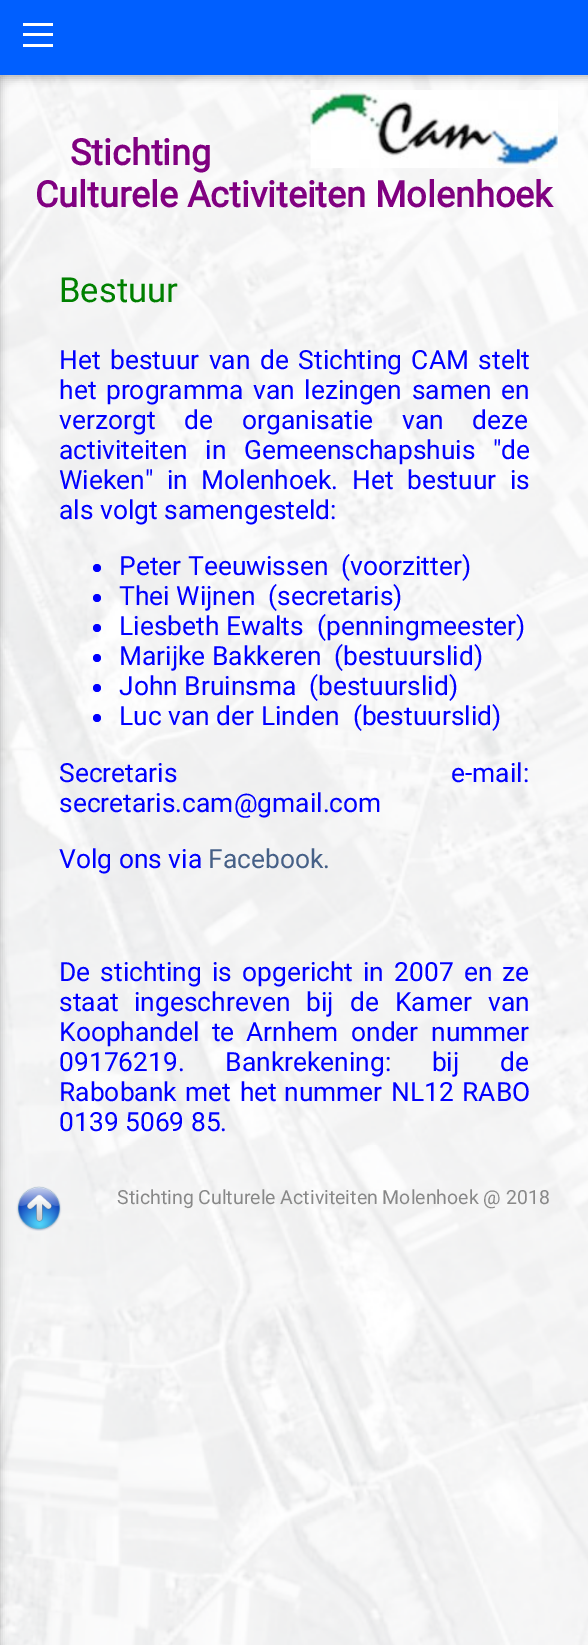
%!PS
<< /PageSize [588 1645] /PageUsesTransparency true >> setpagedevice
/alpha { dup .setfillconstantalpha .setstrokeconstantalpha } def
/roundrect { 5 dict begin { /r /h /w /y /x } { exch def } forall
  x r add y moveto x w add y 2 copy h add r arct x w add y h add x 1 index r arct
  x y h add x y r arct x y 2 copy exch w add exch r arct closepath end } def
/shadow { 12 dict begin { /a /b /q /h /w /y /x } { exch def } forall gsave /was 0 def
  9 -2 -9 { dup b mul 4 div /e exch def 1 sub .425 mul 2.718 exch exp 1 add a .99 .min exch div /now exch def
    1 1 now sub 1 was sub div sub alpha /was now def
    w h .min e 2 mul add 0 gt { x e sub y e sub w e 2 mul add h e 2 mul add
      q e add b .6 mul add w h .min 2 div e add .min 0 .max roundrect fill } if } for grestore end } def
/picture { 5 dict begin { /h /w /y /x /name } { exch def } forall
  gsave x y translate w h scale
  w h 8 [w 0 0 h 0 0] name (r) file false 3 colorimage grestore end } def
0 .pushpdf14devicefilter
0 1645 translate 1 -1 scale
4 setmiterlimit
1 setgray
0 0 588 1645 rectfill
(img1.rgb) 0 75 588 1570 picture
0 setgray
-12 3 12 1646 0 4 0.26 shadow
(img2.rgb) 310 90 248 78 picture
0 3 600 75 0 4 0.26 shadow
0 0.373 1 setrgbcolor
0 0 588 75 rectfill
1 setgray
23 23 30 3 rectfill
23 33 30 3 rectfill
23 44 30 3 rectfill
/Roboto-Bold [36 0 0 -36 0 0] selectfont
0.502 0 0.502 setrgbcolor
70 165 moveto (Stichting) show
35 207 moveto (Culturele Activiteiten Molenhoek) show
/Roboto-Regular [34.5 0 0 -34.5 0 0] selectfont
0 0.502 0 setrgbcolor
59 302 moveto (Bestuur) show
/Roboto-Regular [26.4 0 0 -26.4 0 0] selectfont
0 0 1 setrgbcolor
59 369 moveto 3 0 32 (Het bestuur van de Stichting CAM stelt) widthshow
59 399 moveto 3 0 32 (het programma van lezingen samen en) widthshow
59 429 moveto 22 0 32 (verzorgt de) widthshow
242 429 moveto 22 0 32 (organisatie van deze) widthshow
59 459 moveto 11 0 32 (activiteiten in Gemeenschapshuis "de) widthshow
59 489 moveto 7 0 32 (Wieken" in Molenhoek.) widthshow
352 489 moveto 7 0 32 (Het bestuur is) widthshow
59 519 moveto (als volgt samengesteld:) show
newpath 97 568 4 0 360 arc closepath fill
119 575 moveto (Peter Teeuwissen) show
341 575 moveto (\(voorzitter\)) show
newpath 97 598 4 0 360 arc closepath fill
119 605 moveto (Thei Wijnen) show
268 605 moveto (\(secretaris\)) show
newpath 97 628 4 0 360 arc closepath fill
119 635 moveto (Liesbeth Ewalts) show
317 635 moveto (\(penningmeester\)) show
newpath 97 658 4 0 360 arc closepath fill
119 665 moveto (Marijke Bakkeren) show
334 665 moveto (\(bestuurslid\)) show
newpath 97 688 4 0 360 arc closepath fill
119 695 moveto (John Bruinsma) show
309 695 moveto (\(bestuurslid\)) show
newpath 97 718 4 0 360 arc closepath fill
119 725 moveto (Luc van der Linden  \(bestuurslid\)) show
59 782 moveto 267 0 32 (Secretaris e-mail:) widthshow
59 812 moveto (secretaris.cam@gmail.com) show
59 868 moveto (Volg ons via) show
0.275 0.376 0.529 setrgbcolor
208 868 moveto (Facebook.) show
0 0 1 setrgbcolor
59 981 moveto 3.5 0 32 (De stichting is opgericht in 2007 en ze) widthshow
59 1011 moveto (staat) show
134 1011 moveto 9.5 0 32 (ingeschreven bij de Kamer van) widthshow
59 1041 moveto 6 0 32 (Koophandel te) widthshow
246 1041 moveto 6 0 32 (Arnhem onder nummer) widthshow
59 1071 moveto 34 0 32 (09176219. Bankrekening: bij de) widthshow
59 1101 moveto 2 0 32 (Rabobank met het) widthshow
284 1101 moveto 2 0 32 (nummer NL12 RABO) widthshow
59 1131 moveto (0139 5069 85.) show
(img3.rgb) 16 1186 46 45 picture
/Roboto-Regular [19.5 0 0 -19.5 0 0] selectfont
0.533 setgray
117 1204 moveto (Stichting Culturele Activiteiten Molenhoek @ 2018) show
.poppdf14devicefilter showpage
